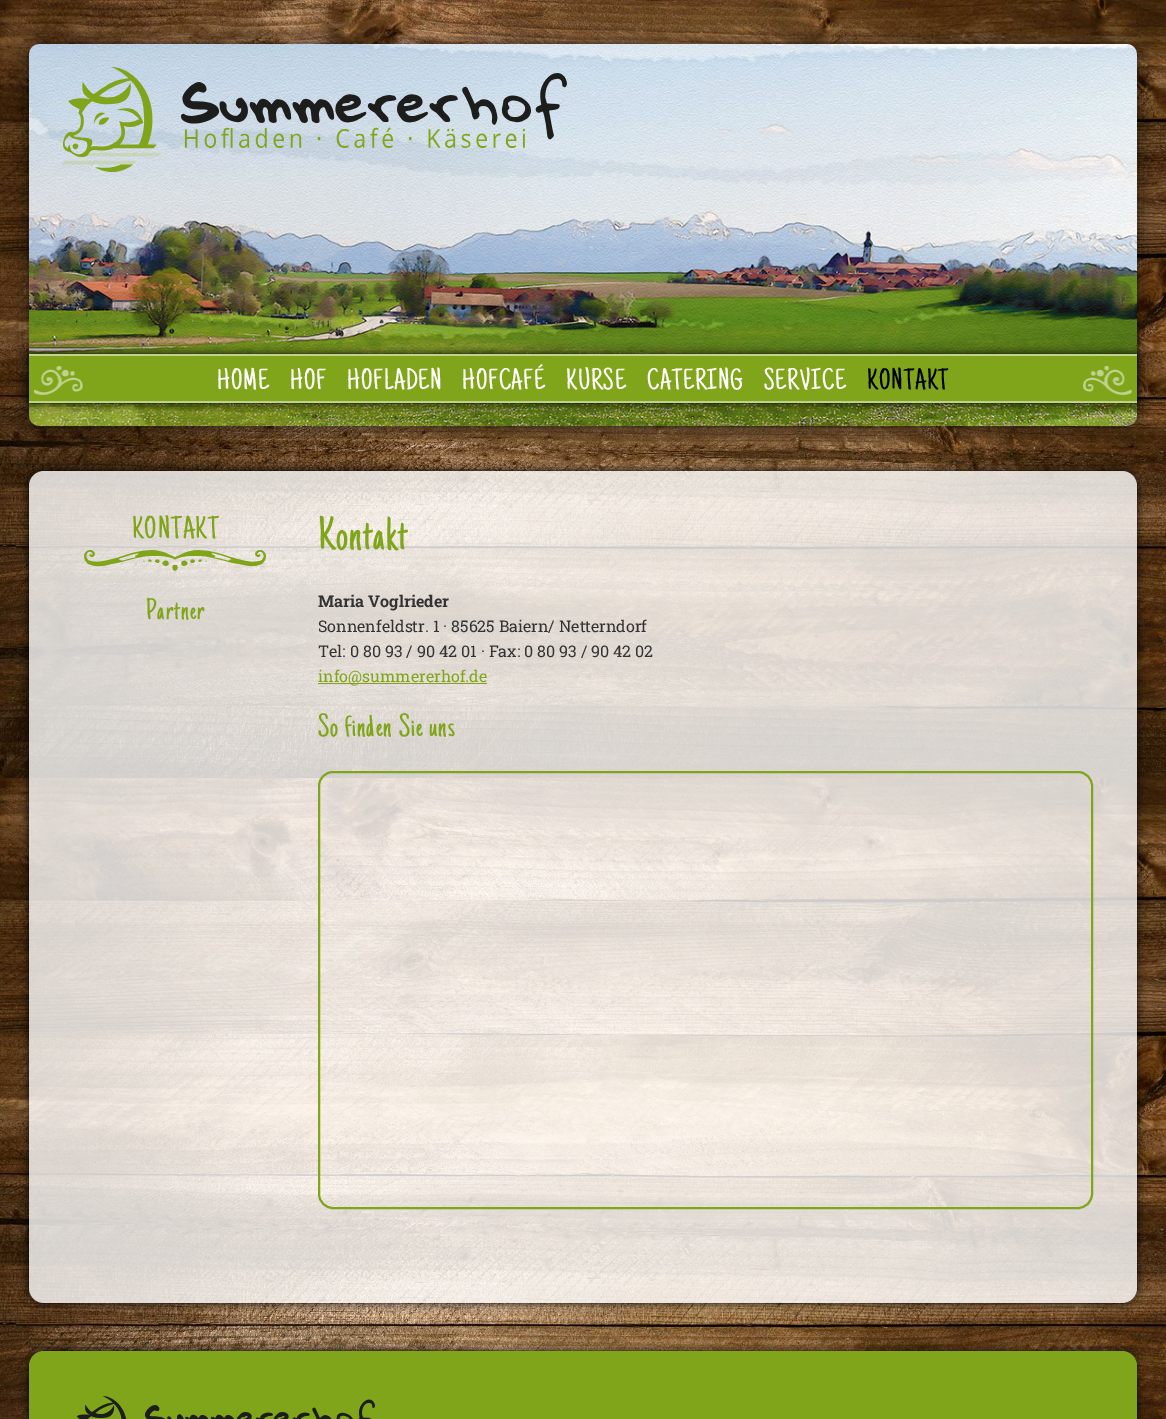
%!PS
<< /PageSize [1166 1419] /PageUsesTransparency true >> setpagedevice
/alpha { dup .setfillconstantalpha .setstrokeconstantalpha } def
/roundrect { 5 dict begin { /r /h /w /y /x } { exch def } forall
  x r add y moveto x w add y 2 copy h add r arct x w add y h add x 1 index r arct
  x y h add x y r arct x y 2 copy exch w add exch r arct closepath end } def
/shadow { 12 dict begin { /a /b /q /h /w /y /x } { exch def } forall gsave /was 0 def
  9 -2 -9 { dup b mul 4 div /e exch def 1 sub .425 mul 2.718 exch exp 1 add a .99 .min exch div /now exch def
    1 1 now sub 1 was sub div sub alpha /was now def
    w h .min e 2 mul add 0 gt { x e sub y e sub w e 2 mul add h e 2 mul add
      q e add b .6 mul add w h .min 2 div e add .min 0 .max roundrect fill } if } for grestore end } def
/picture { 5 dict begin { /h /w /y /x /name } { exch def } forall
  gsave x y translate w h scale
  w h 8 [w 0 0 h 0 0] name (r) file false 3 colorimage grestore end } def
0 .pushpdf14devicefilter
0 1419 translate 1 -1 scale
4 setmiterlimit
1 setgray
0 0 1166 1419 rectfill
(img1.rgb) 0 0 1166 1419 picture
0 setgray
29 44 1108 382 10 10 0.75 shadow
(img2.rgb) 29 44 1108 382 picture
(img3.rgb) 62 67 505 105 picture
29 354 1108 49 0 5 1 shadow
0.502 0.647 0.106 setrgbcolor
29 356 1108 45 rectfill
0.753 0.824 0.553 setrgbcolor
29 354 1108 2 rectfill
29 401 1108 2 rectfill
(img4.rgb) 34 366 49 29 picture
/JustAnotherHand-Regular [30 0 0 -30 0 0] selectfont
1 setgray
217 389 moveto 1 0 (HOME) ashow
290 389 moveto 1 0 (HOF) ashow
347 389 moveto 1 0 (HOFLADEN) ashow
462 389 moveto 1 0 (HOFCAFÉ) ashow
566 389 moveto 1 0 (KURSE) ashow
647 389 moveto 1 0 (CATERING) ashow
764 389 moveto 1 0 (SERVICE) ashow
0 setgray
867 389 moveto 1 0 (KONTAKT) ashow
(img5.rgb) 1083 366 49 29 picture
gsave
newpath 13 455 moveto 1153 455 lineto 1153 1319 lineto 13 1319 lineto closepath 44 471 moveto 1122 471 lineto 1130.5 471 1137 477.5 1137 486 curveto 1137 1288 lineto 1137 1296.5 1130.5 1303 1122 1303 curveto 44 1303 lineto 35.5 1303 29 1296.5 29 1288 curveto 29 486 lineto 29 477.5 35.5 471 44 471 curveto closepath eoclip newpath
29 471 1108 832 15 5 1 shadow
grestore
0.8 alpha
1 setgray
29 471 1108 832 15 roundrect fill
/JustAnotherHand-Regular [32 0 0 -32 0 0] selectfont
1 alpha
0.502 0.647 0.106 setrgbcolor
132 538 moveto 1 0 (KONTAKT) ashow
(img6.rgb) 84 550 182 21 picture
/JustAnotherHand-Regular [30 0 0 -30 0 0] selectfont
146 619 moveto 1 0 (Partner) ashow
/JustAnotherHand-Regular [48 0 0 -48 0 0] selectfont
318 549 moveto 1 0 (Kontakt) ashow
/RobotoSlab-Bold [16 0 0 -16 0 0] selectfont
0.2 setgray
318 607 moveto (Maria Voglrieder) show
/RobotoSlab-Regular [16 0 0 -16 0 0] selectfont
318 632 moveto (Sonnenfeldstr. 1 · 85625 Baiern/ Netterndorf) show
318 657 moveto (Tel: 0 80 93 / 90 42 01 · Fax: 0 80 93 / 90 42 02) show
0.502 0.647 0.106 setrgbcolor
318 683 169 1 rectfill
318 682 moveto (info@summererhof.de) show
/JustAnotherHand-Regular [32 0 0 -32 0 0] selectfont
318 736 moveto 1 0 (So finden Sie uns) ashow
2 setlinewidth
319 772 773 436 14 roundrect stroke
0 setgray
29 1351 1108 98 15 5 1 shadow
0.502 0.647 0.106 setrgbcolor
29 1351 1108 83 15 roundrect fill
(img7.rgb) 76 1396 299 23 picture
.poppdf14devicefilter showpage
